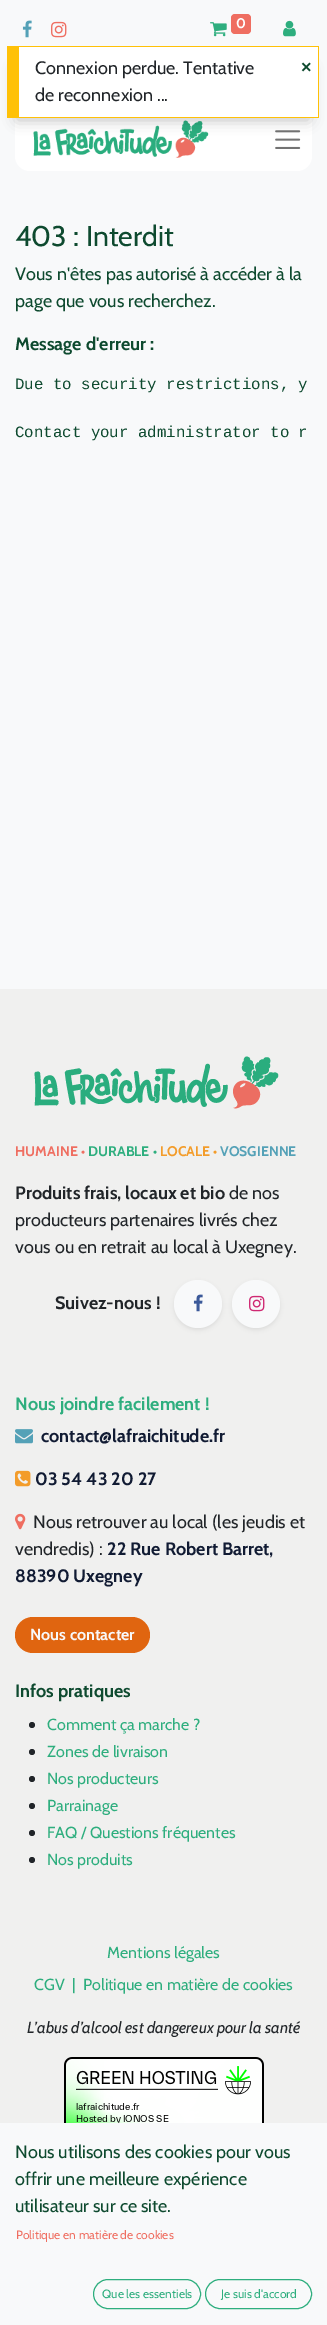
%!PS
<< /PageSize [327 2325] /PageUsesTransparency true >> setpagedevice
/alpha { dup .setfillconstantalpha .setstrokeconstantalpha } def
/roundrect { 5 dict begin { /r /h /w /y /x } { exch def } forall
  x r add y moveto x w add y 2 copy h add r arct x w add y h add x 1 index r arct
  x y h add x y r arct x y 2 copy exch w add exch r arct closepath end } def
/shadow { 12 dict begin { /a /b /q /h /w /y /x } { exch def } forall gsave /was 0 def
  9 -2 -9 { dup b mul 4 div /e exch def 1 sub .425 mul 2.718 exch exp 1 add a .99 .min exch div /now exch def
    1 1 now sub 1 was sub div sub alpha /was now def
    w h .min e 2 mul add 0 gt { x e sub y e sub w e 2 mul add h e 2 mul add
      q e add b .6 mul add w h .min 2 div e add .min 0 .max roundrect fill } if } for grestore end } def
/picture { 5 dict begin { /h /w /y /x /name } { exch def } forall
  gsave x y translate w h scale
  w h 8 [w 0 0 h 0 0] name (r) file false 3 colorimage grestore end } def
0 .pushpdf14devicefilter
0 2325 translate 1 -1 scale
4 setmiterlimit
0.973 0.976 0.98 setrgbcolor
0 0 327 2325 rectfill
(img1.rgb) 22 20 10 18 picture
(img2.rgb) 51 21 16 17 picture
(img3.rgb) 210 22 17 15 picture
0.937 0.431 0.38 setrgbcolor
231 14 20 20 4 roundrect fill
/Cabin-Bold [14 0 0 -14 0 0] selectfont
1 setgray
236 28 moveto (0) show
(img4.rgb) 283 20 13 17 picture
15 108 297 63 15 roundrect fill
(img5.rgb) 33 120 176 38 picture
(img6.rgb) 275 130 26 19 picture
/Cabin-Regular [28.5 0 0 -28.5 0 0] selectfont
0.055 0.29 0.184 setrgbcolor
15 246 moveto (403 : Interdit) show
/Cabin-Regular [18 0 0 -18 0 0] selectfont
15 280 moveto (Vous n'êtes pas autorisé à accéder à la) show
15 307 moveto (page que vous recherchez.) show
/Cabin-Bold [18 0 0 -18 0 0] selectfont
15 350 moveto (Message d'erreur :) show
/LiberationMono-Regular [15.75 0 0 -15.75 0 0] selectfont
15 389 moveto (Due to security restrictions, y) show
15 437 moveto (Contact your administrator to r) show
0.941 0.941 0.937 setrgbcolor
0 989 327 1134 rectfill
(img7.rgb) 34 1056 245 53 picture
/Cabin-Bold [14 0 0 -14 0 0] selectfont
0.937 0.431 0.38 setrgbcolor
15 1156 moveto (HUMAINE •) show
0.18 0.682 0.494 setrgbcolor
88 1156 moveto (DURABLE •) show
0.953 0.612 0.165 setrgbcolor
160 1156 moveto (LOCALE •) show
0.329 0.631 0.718 setrgbcolor
220 1156 moveto (VOSGIENNE) show
/Cabin-Bold [18 0 0 -18 0 0] selectfont
0.129 0.145 0.161 setrgbcolor
15 1199 moveto (Produits frais, locaux et bio) show
/Cabin-Regular [18 0 0 -18 0 0] selectfont
229 1199 moveto (de nos) show
15 1226 moveto (producteurs partenaires livrés chez) show
15 1253 moveto (vous ou en retrait au local à Uxegney.) show
/Cabin-Bold [18 0 0 -18 0 0] selectfont
55 1309 moveto (Suivez-nous !) show
0 setgray
174 1282 48 48 24 2 0.07 shadow
0.973 0.976 0.98 setrgbcolor
newpath 198 1304 24 0 360 arc closepath fill
(img8.rgb) 193 1294 10 18 picture
0 setgray
232 1282 48 48 24 2 0.07 shadow
0.973 0.976 0.98 setrgbcolor
newpath 256 1304 24 0 360 arc closepath fill
(img9.rgb) 249 1295 16 17 picture
0.18 0.682 0.494 setrgbcolor
15 1410 moveto (Nous joindre facilement !) show
(img10.rgb) 15 1429 18 15 picture
0.067 0.106 0.2 setrgbcolor
41 1442 moveto (contact@lafraichitude.fr) show
(img11.rgb) 15 1470 16 17 picture
35 1485 moveto (03 54 43 20 27) show
(img12.rgb) 15 1513 11 17 picture
/Cabin-Regular [18 0 0 -18 0 0] selectfont
0.129 0.145 0.161 setrgbcolor
33 1528 moveto (Nous retrouver au local \(les jeudis et) show
15 1555 moveto (vendredis\) :) show
/Cabin-Bold [18 0 0 -18 0 0] selectfont
0.067 0.106 0.2 setrgbcolor
107 1555 moveto (22 Rue Robert Barret,) show
15 1582 moveto (88390 Uxegney) show
0.878 0.396 0.063 setrgbcolor
15 1617 135 36 18 roundrect fill
/Cabin-Bold [16 0 0 -16 0 0] selectfont
0.973 0.976 0.98 setrgbcolor
30 1640 moveto (Nous contacter) show
/Cabin-Bold [18 0 0 -18 0 0] selectfont
0.055 0.29 0.184 setrgbcolor
15 1697 moveto (Infos pratiques) show
0.129 0.145 0.161 setrgbcolor
newpath 32 1725 3 0 360 arc closepath fill
/Cabin-Regular [16 0 0 -16 0 0] selectfont
0.18 0.682 0.494 setrgbcolor
47 1730 moveto (Comment ça marche ?) show
0.129 0.145 0.161 setrgbcolor
newpath 32 1752 3 0 360 arc closepath fill
0.18 0.682 0.494 setrgbcolor
47 1757 moveto (Zones de livraison) show
0.129 0.145 0.161 setrgbcolor
newpath 32 1779 3 0 360 arc closepath fill
0.18 0.682 0.494 setrgbcolor
47 1784 moveto (Nos producteurs) show
0.129 0.145 0.161 setrgbcolor
newpath 32 1806 3 0 360 arc closepath fill
0.18 0.682 0.494 setrgbcolor
47 1811 moveto (Parrainage) show
0.129 0.145 0.161 setrgbcolor
newpath 32 1833 3 0 360 arc closepath fill
0.18 0.682 0.494 setrgbcolor
47 1838 moveto (FAQ / Questions fréquentes) show
0.129 0.145 0.161 setrgbcolor
newpath 32 1860 3 0 360 arc closepath fill
0.18 0.682 0.494 setrgbcolor
47 1865 moveto (Nos produits) show
107 1958 moveto (Mentions légales) show
34 1990 moveto (CGV) show
72 1990 moveto (|  Politique en matière de cookies) show
/Cabin-Italic [16 0 0 -16 0 0] selectfont
0.129 0.145 0.161 setrgbcolor
27 2033 moveto (L’abus d’alcool est dangereux pour la santé) show
(img13.rgb) 64 2057 200 66 picture
/Cabin-Regular [18 0 0 -18 0 0] selectfont
0.055 0.29 0.184 setrgbcolor
15 2158 moveto (Nous utilisons des cookies pour vous) show
15 2185 moveto (offrir une meilleure expérience) show
15 2212 moveto (utilisateur sur ce site.) show
/Cabin-Regular [12 0 0 -12 0 0] selectfont
0.937 0.431 0.38 setrgbcolor
16 2239 moveto (Politique en matière de cookies) show
0.18 0.682 0.494 setrgbcolor
93.5 2279.5 107 29 14.5 roundrect stroke
102 2298 moveto (Que les essentiels) show
205.5 2279.5 106 29 14.5 roundrect stroke
221 2298 moveto (Je suis d'accord) show
0 setgray
17 68 292 52 0 7 0.25 shadow
1 setgray
19 47 299 70 rectfill
1 0.757 0.027 setrgbcolor
19 46 300 1 rectfill
318 46 1 72 rectfill
19 117 300 1 rectfill
7 46 12 72 rectfill
/Cabin-Regular [18 0 0 -18 0 0] selectfont
0.129 0.145 0.161 setrgbcolor
35 74 moveto (Connexion perdue. Tentative) show
35 101 moveto (de reconnexion ...) show
/LiberationSans-Bold [18 0 0 -18 0 0] selectfont
0.055 0.29 0.184 setrgbcolor
301 73 moveto (×) show
.poppdf14devicefilter showpage
